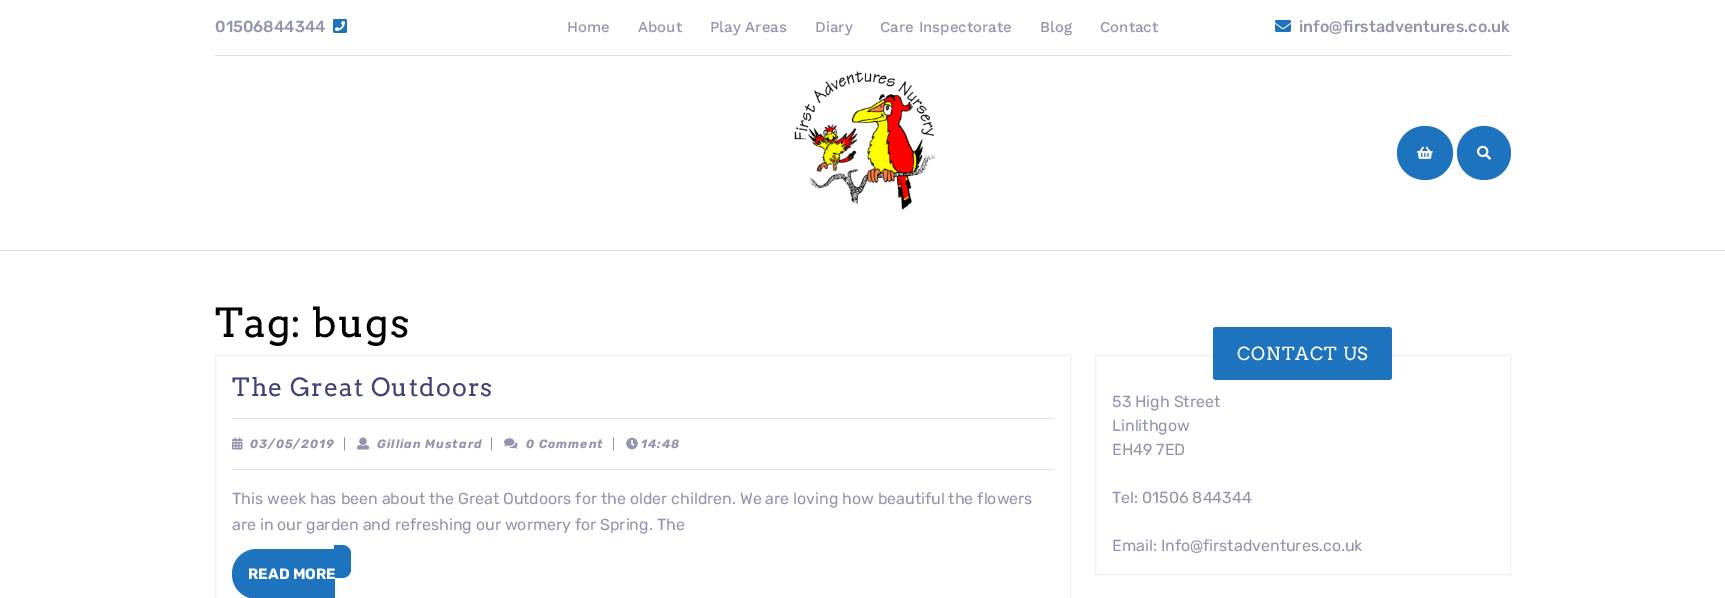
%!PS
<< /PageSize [1725 598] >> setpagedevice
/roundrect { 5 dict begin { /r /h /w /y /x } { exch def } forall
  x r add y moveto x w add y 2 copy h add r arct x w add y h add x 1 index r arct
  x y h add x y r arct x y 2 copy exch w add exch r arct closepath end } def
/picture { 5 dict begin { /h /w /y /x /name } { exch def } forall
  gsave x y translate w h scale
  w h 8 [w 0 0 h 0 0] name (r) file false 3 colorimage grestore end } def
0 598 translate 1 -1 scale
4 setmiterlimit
1 setgray
0 0 1725 598 rectfill
0.871 setgray
0 250 1725 1 rectfill
215 55 1296 1 rectfill
/Rubik-Medium [16 0 0 -16 0 0] selectfont
0.58 0.584 0.678 setrgbcolor
215 32 moveto (01506844344) show
(img1.rgb) 333 19 14 14 picture
/WorkSans-Medium [15 0 0 -15 0 0] selectfont
567 32 moveto (Home) show
638 32 moveto (About) show
710 32 moveto (Play Areas) show
815 32 moveto (Diary) show
880 32 moveto (Care Inspectorate) show
1040 32 moveto (Blog) show
1100 32 moveto (Contact) show
(img2.rgb) 1275 20 16 12 picture
/Rubik-Medium [16 0 0 -16 0 0] selectfont
1299 32 moveto (info@firstadventures.co.uk) show
(img3.rgb) 794 71 141 139 picture
0.118 0.451 0.745 setrgbcolor
newpath 1425 126 moveto 1440.5 126 1453 138 1453 153 curveto 1453 168 1440.5 180 1425 180 curveto 1409.5 180 1397 168 1397 153 curveto 1397 138 1409.5 126 1425 126 curveto closepath fill
(img4.rgb) 1417 146 16 13 picture
newpath 1484 153 27 0 360 arc closepath fill
(img5.rgb) 1477 145 14 15 picture
/Arvo-Regular [40 0 0 -40 0 0] selectfont
0 setgray
215 337 moveto 1 0 (Tag: bugs) ashow
0.941 setgray
215.5 355.5 855 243 rectstroke
/Arvo-Regular [25 0 0 -25 0 0] selectfont
0.251 0.263 0.463 setrgbcolor
232 396 moveto 1 0 (The Great Outdoors) ashow
0.894 0.898 0.922 setrgbcolor
232 418 822 1 rectfill
(img6.rgb) 232 437 11 13 picture
/Rubik-BoldItalic [12 0 0 -12 0 0] selectfont
0.58 0.584 0.678 setrgbcolor
250 448 moveto 1 0 (03/05/2019) ashow
/Rubik-Regular [12 0 0 -12 0 0] selectfont
343 448 moveto (|) show
(img7.rgb) 357 437 12 13 picture
/Rubik-BoldItalic [12 0 0 -12 0 0] selectfont
377 448 moveto 1 0 (Gillian Mustard) ashow
/Rubik-Regular [12 0 0 -12 0 0] selectfont
490 448 moveto (|) show
(img8.rgb) 504 438 14 11 picture
/Rubik-BoldItalic [12 0 0 -12 0 0] selectfont
526 448 moveto 1 0 (0 Comment) ashow
/Rubik-Regular [12 0 0 -12 0 0] selectfont
612 448 moveto (|) show
(img9.rgb) 626 437 12 13 picture
/Rubik-BoldItalic [12 0 0 -12 0 0] selectfont
641 448 moveto 1 0 (14:48) ashow
0.894 0.898 0.922 setrgbcolor
232 469 822 1 rectfill
/Rubik-Regular [16 0 0 -16 0 0] selectfont
0.58 0.584 0.678 setrgbcolor
232 504 moveto (This week has been about the Great Outdoors for the older children. We are loving how beautiful the flowers) show
232 530 moveto (are in our garden and refreshing our wormery for Spring. The) show
0.118 0.451 0.745 setrgbcolor
newpath 257 549 moveto 335 549 lineto 335 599 lineto 257 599 lineto 243 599 232 588 232 574 curveto 232 560 243 549 257 549 curveto closepath fill
newpath 334 545 moveto 342.5 545 lineto 347 545 351 549 351 553.5 curveto 351 569.5 lineto 351 574 347 578 342.5 578 curveto 334 578 lineto closepath fill
/Rubik-Bold [15 0 0 -15 0 0] selectfont
1 setgray
248 579 moveto (READ MORE) show
0.941 setgray
1095.5 355.5 415 219 rectstroke
0.118 0.451 0.745 setrgbcolor
1213 327 179 53 3 roundrect fill
/Arvo-Regular [18 0 0 -18 0 0] selectfont
1 setgray
1237 360 moveto 1 0 (CONTACT US) ashow
/Rubik-Regular [16 0 0 -16 0 0] selectfont
0.58 0.584 0.678 setrgbcolor
1112 407 moveto (53 High Street) show
1112 431 moveto (Linlithgow) show
1112 455 moveto (EH49 7ED) show
1112 503 moveto (Tel: 01506 844344) show
1112 551 moveto (Email: Info@firstadventures.co.uk) show
showpage
